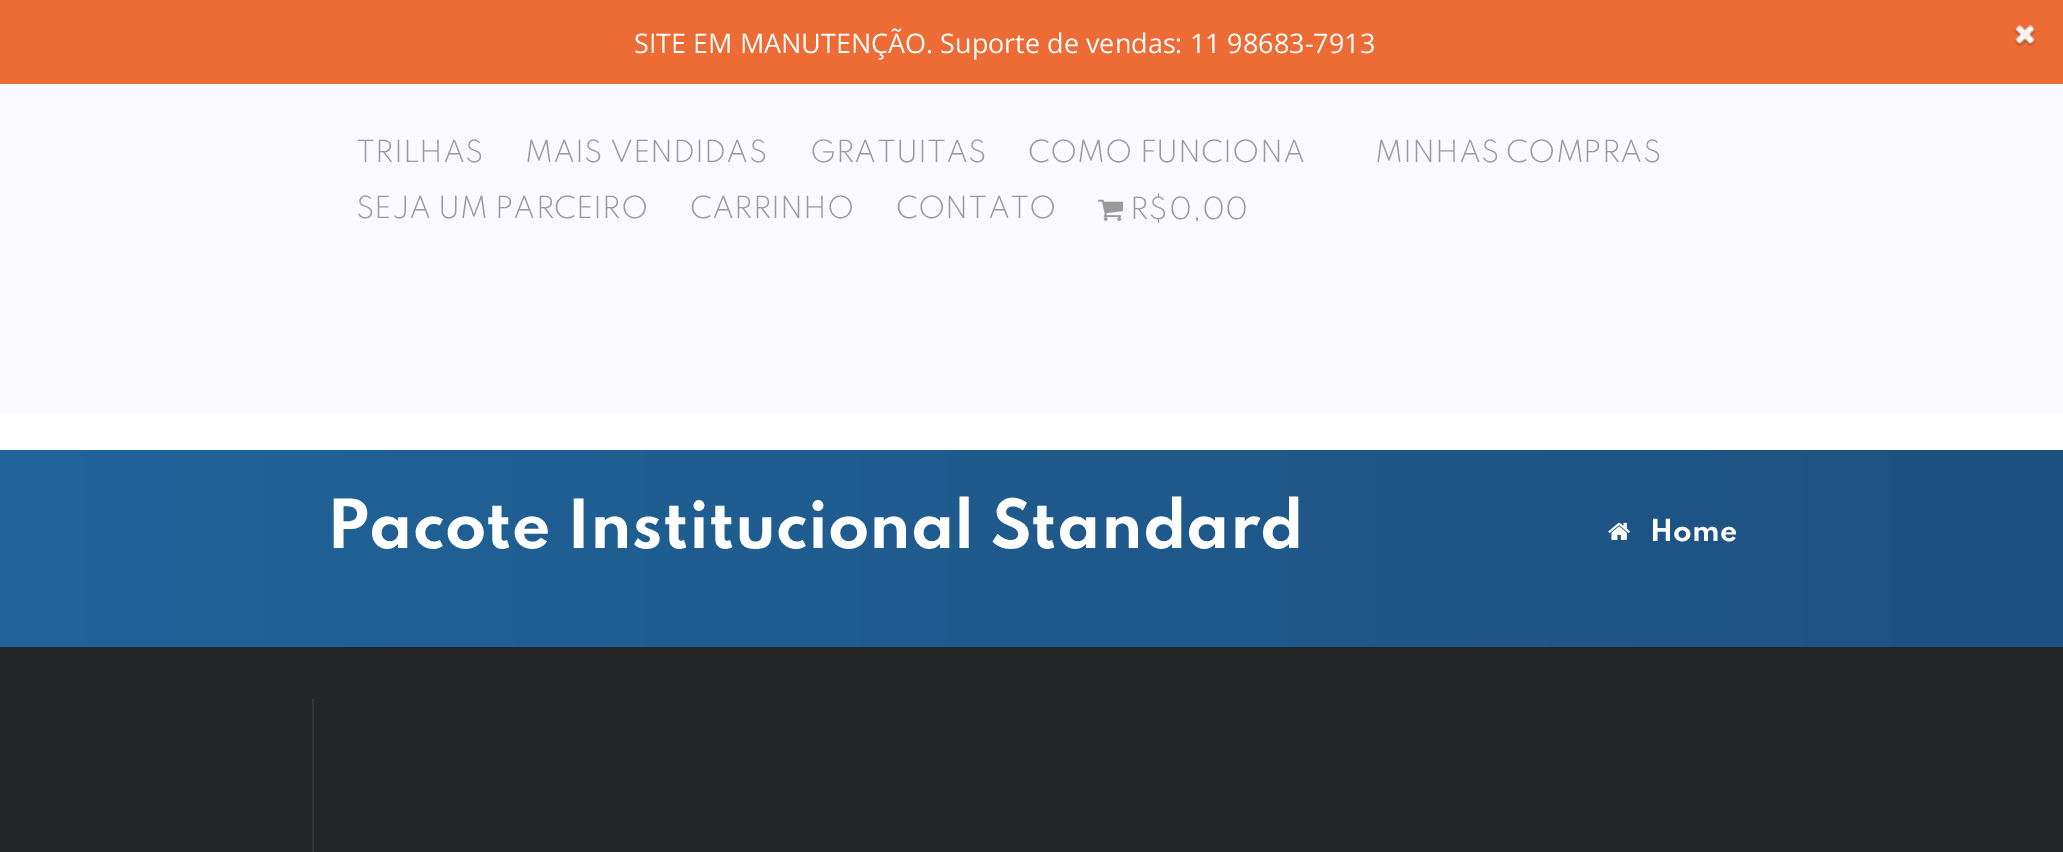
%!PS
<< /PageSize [2063 852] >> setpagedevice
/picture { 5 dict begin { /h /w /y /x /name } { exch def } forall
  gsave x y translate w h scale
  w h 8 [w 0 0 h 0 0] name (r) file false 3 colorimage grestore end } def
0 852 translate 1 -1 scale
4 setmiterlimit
1 setgray
0 0 2063 852 rectfill
0.929 0.42 0.204 setrgbcolor
0 0 2063 84 rectfill
/OpenSans-Regular [27 0 0 -27 0 0] selectfont
1 setgray
634 53 moveto (SITE EM MANUTENÇÃO. Suporte de vendas: 11 98683-7913) show
(img1.rgb) 2014 25 22 22 picture
0.98 0.976 1 setrgbcolor
0 84 2063 330 rectfill
/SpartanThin-Light [27 0 0 -27 0 0] selectfont
0.6 setgray
356 162 moveto (TRILHAS) show
525 162 moveto (MAIS VENDIDAS) show
810 162 moveto (GRATUITAS) show
1028 162 moveto (COMO FUNCIONA) show
1375 162 moveto (MINHAS COMPRAS) show
356 218 moveto (SEJA UM PARCEIRO) show
690 218 moveto (CARRINHO) show
896 218 moveto (CONTATO) show
(img2.rgb) 1098 199 26 22 picture
1130 219 moveto (R$0,00) show
gsave newpath 0 450 moveto 2063 450 lineto 2063 647 lineto 0 647 lineto closepath clip newpath
<< /ShadingType 2 /ColorSpace /DeviceRGB /Coords [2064 548 0 548] /Extend [true true] /Function << /FunctionType 2 /Domain [0 1] /C0 [0.118 0.314 0.506] /C1 [0.125 0.392 0.6] /N 1 >> >> shfill grestore
/SpartanThin-Bold [60 0 0 -60 0 0] selectfont
1 setgray
327 548 moveto (Pacote Institucional Standard) show
(img3.rgb) 1608 522 22 18 picture
/SpartanThin-Bold [27 0 0 -27 0 0] selectfont
1650 541 moveto (Home) show
0.137 0.145 0.149 setrgbcolor
0 647 2063 205 rectfill
0.2 setgray
312 699 2 153 rectfill
showpage
